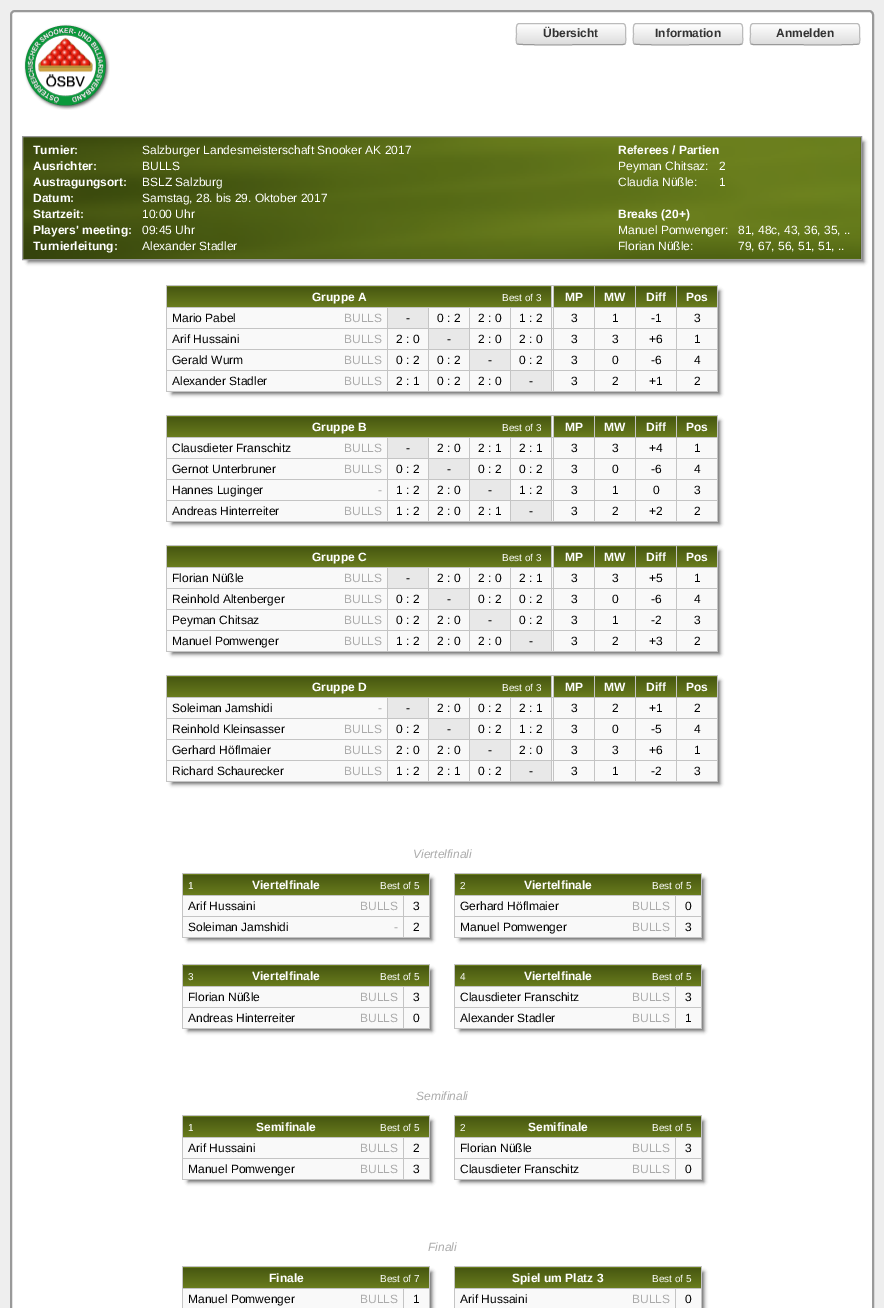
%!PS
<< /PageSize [884 1308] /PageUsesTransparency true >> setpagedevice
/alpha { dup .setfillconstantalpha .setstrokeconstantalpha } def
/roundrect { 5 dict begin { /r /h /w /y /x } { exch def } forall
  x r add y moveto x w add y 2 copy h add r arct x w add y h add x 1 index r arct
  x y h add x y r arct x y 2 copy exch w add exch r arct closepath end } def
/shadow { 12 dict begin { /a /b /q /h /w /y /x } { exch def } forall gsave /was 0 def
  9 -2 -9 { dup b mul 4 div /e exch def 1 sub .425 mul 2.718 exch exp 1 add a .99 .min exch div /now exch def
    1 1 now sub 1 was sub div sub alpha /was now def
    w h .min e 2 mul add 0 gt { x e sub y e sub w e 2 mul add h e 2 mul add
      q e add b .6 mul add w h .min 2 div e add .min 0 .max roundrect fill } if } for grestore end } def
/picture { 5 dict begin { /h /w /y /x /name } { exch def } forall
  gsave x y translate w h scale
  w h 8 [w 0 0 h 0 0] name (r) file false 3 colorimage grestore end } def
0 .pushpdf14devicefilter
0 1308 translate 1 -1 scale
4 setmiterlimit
0.933 setgray
0 0 884 1308 rectfill
1 setgray
11 11 862 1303 4 roundrect gsave fill grestore
0.6 setgray
2 setlinewidth
stroke
(img1.rgb) 24 24 86 86 picture
gsave
516 23 110 22 3 roundrect clip newpath
gsave newpath 516 24 moveto 626 24 lineto 626 44 lineto 516 44 lineto closepath clip newpath
<< /ShadingType 2 /ColorSpace /DeviceRGB /Coords [571 24 571 44] /Extend [true true] /Function << /FunctionType 2 /Domain [0 1] /C0 [1 1 1] /C1 [0.867 0.867 0.867] /N 1 >> >> shfill grestore
grestore
1 setlinewidth
newpath 625 44 moveto 623 44.5 lineto 605.5 44.5 lineto 597 44.5 519.5 45.5 517.5 44 curveto 517 44 lineto stroke
0.733 setgray
newpath 517 44 moveto 515.5 42 516.5 36 516.5 34 curveto 516.5 32 515 23.5 519 23.5 curveto 623 23.5 lineto 627 23.5 625.5 32 625.5 34 curveto 625.5 36 626.5 42 625 44 curveto stroke
/LiberationSans-Bold [12 0 0 -12 0 0] selectfont
0.2 setgray
543 37 moveto (Übersicht) show
gsave
633 23 110 22 3 roundrect clip newpath
gsave newpath 633 24 moveto 743 24 lineto 743 44 lineto 633 44 lineto closepath clip newpath
<< /ShadingType 2 /ColorSpace /DeviceRGB /Coords [688 24 688 44] /Extend [true true] /Function << /FunctionType 2 /Domain [0 1] /C0 [1 1 1] /C1 [0.867 0.867 0.867] /N 1 >> >> shfill grestore
grestore
0.6 setgray
newpath 742 44 moveto 740 44.5 lineto 722.5 44.5 lineto 714 44.5 636.5 45.5 634.5 44 curveto 634 44 lineto stroke
0.733 setgray
newpath 634 44 moveto 632.5 42 633.5 36 633.5 34 curveto 633.5 32 632 23.5 636 23.5 curveto 740 23.5 lineto 744 23.5 742.5 32 742.5 34 curveto 742.5 36 743.5 42 742 44 curveto stroke
0.2 setgray
655 37 moveto (Information) show
gsave
750 23 110 22 3 roundrect clip newpath
gsave newpath 750 24 moveto 860 24 lineto 860 44 lineto 750 44 lineto closepath clip newpath
<< /ShadingType 2 /ColorSpace /DeviceRGB /Coords [805 24 805 44] /Extend [true true] /Function << /FunctionType 2 /Domain [0 1] /C0 [1 1 1] /C1 [0.867 0.867 0.867] /N 1 >> >> shfill grestore
grestore
0.6 setgray
newpath 859 44 moveto 858.5 44 lineto 856.5 45.5 779 44.5 770.5 44.5 curveto 753 44.5 lineto 751 44 lineto stroke
0.733 setgray
newpath 751 44 moveto 749.5 42 750.5 36 750.5 34 curveto 750.5 32 749 23.5 753 23.5 curveto 857 23.5 lineto 861 23.5 859.5 32 859.5 34 curveto 859.5 36 860.5 42 859 44 curveto stroke
0.2 setgray
776 37 moveto (Anmelden) show
0.4 setgray
28 142 836 120 0 2 1 shadow
(img2.rgb) 23 137 838 122 picture
0.6 setgray
22.5 136.5 839 123 rectstroke
1 setgray
33 154 moveto (Turnier:) show
/LiberationSans-Regular [12 0 0 -12 0 0] selectfont
142 154 moveto (Salzburger Landesmeisterschaft Snooker AK 2017) show
/LiberationSans-Bold [12 0 0 -12 0 0] selectfont
33 170 moveto (Ausrichter:) show
/LiberationSans-Regular [12 0 0 -12 0 0] selectfont
142 170 moveto (BULLS) show
/LiberationSans-Bold [12 0 0 -12 0 0] selectfont
33 186 moveto (Austragungsort:) show
/LiberationSans-Regular [12 0 0 -12 0 0] selectfont
142 186 moveto (BSLZ Salzburg) show
/LiberationSans-Bold [12 0 0 -12 0 0] selectfont
33 202 moveto (Datum:) show
/LiberationSans-Regular [12 0 0 -12 0 0] selectfont
142 202 moveto (Samstag, 28. bis 29. Oktober 2017) show
/LiberationSans-Bold [12 0 0 -12 0 0] selectfont
33 218 moveto (Startzeit:) show
/LiberationSans-Regular [12 0 0 -12 0 0] selectfont
142 218 moveto (10:00 Uhr) show
/LiberationSans-Bold [12 0 0 -12 0 0] selectfont
33 234 moveto (Players' meeting:) show
/LiberationSans-Regular [12 0 0 -12 0 0] selectfont
142 234 moveto (09:45 Uhr) show
/LiberationSans-Bold [12 0 0 -12 0 0] selectfont
33 250 moveto (Turnierleitung:) show
/LiberationSans-Regular [12 0 0 -12 0 0] selectfont
142 250 moveto (Alexander Stadler) show
/LiberationSans-Bold [12 0 0 -12 0 0] selectfont
618 154 moveto (Referees / Partien) show
/LiberationSans-Regular [12 0 0 -12 0 0] selectfont
618 170 moveto (Peyman Chitsaz:) show
719 170 moveto (2) show
618 186 moveto (Claudia Nüßle:) show
719 186 moveto (1) show
/LiberationSans-Bold [12 0 0 -12 0 0] selectfont
618 218 moveto (Breaks \(20+\)) show
/LiberationSans-Regular [12 0 0 -12 0 0] selectfont
618 234 moveto (Manuel Pomwenger:) show
738 234 moveto (81, 48c, 43, 36, 35, ..) show
618 250 moveto (Florian Nüßle:) show
738 250 moveto (79, 67, 56, 51, 51, ..) show
0.4 setgray
172 291 548 103 0 2 1 shadow
0.976 setgray
167 286 550 105 rectfill
gsave newpath 167 286 moveto 552 286 lineto 552 287 lineto 167 287 lineto closepath clip newpath
<< /ShadingType 2 /ColorSpace /DeviceRGB /Coords [360 267 360 287] /Extend [true true] /Function << /FunctionType 2 /Domain [0 1] /C0 [0.278 0.341 0.067] /C1 [0.412 0.486 0.114] /N 1 >> >> shfill grestore
gsave newpath 167 287 moveto 551 287 lineto 551 307 lineto 167 307 lineto closepath clip newpath
<< /ShadingType 2 /ColorSpace /DeviceRGB /Coords [360 287 360 307] /Extend [true true] /Function << /FunctionType 2 /Domain [0 1] /C0 [0.278 0.341 0.067] /C1 [0.412 0.486 0.114] /N 1 >> >> shfill grestore
gsave newpath 677 286 moveto 718 286 lineto 718 287 lineto 677 287 lineto closepath clip newpath
<< /ShadingType 2 /ColorSpace /DeviceRGB /Coords [698 267 698 287] /Extend [true true] /Function << /FunctionType 2 /Domain [0 1] /C0 [0.278 0.341 0.067] /C1 [0.412 0.486 0.114] /N 1 >> >> shfill grestore
0.769 setgray
717 285 1 107 rectfill
676 285 42 1 rectfill
gsave newpath 636 286 moveto 677 286 lineto 677 287 lineto 636 287 lineto closepath clip newpath
<< /ShadingType 2 /ColorSpace /DeviceRGB /Coords [657 267 657 287] /Extend [true true] /Function << /FunctionType 2 /Domain [0 1] /C0 [0.278 0.341 0.067] /C1 [0.412 0.486 0.114] /N 1 >> >> shfill grestore
676 307 42 1 rectfill
676 328 42 1 rectfill
676 349 42 1 rectfill
676 370 42 1 rectfill
676 391 42 1 rectfill
676 370 1 22 rectfill
635 370 42 1 rectfill
676 349 1 22 rectfill
635 349 42 1 rectfill
676 328 1 22 rectfill
635 328 42 1 rectfill
676 307 1 22 rectfill
635 307 42 1 rectfill
676 285 1 23 rectfill
635 285 42 1 rectfill
gsave newpath 595 286 moveto 636 286 lineto 636 287 lineto 595 287 lineto closepath clip newpath
<< /ShadingType 2 /ColorSpace /DeviceRGB /Coords [616 267 616 287] /Extend [true true] /Function << /FunctionType 2 /Domain [0 1] /C0 [0.278 0.341 0.067] /C1 [0.412 0.486 0.114] /N 1 >> >> shfill grestore
635 391 42 1 rectfill
635 370 1 22 rectfill
594 370 42 1 rectfill
635 349 1 22 rectfill
594 349 42 1 rectfill
635 328 1 22 rectfill
594 328 42 1 rectfill
635 307 1 22 rectfill
594 307 42 1 rectfill
635 285 1 23 rectfill
594 285 42 1 rectfill
gsave newpath 554 286 moveto 595 286 lineto 595 287 lineto 554 287 lineto closepath clip newpath
<< /ShadingType 2 /ColorSpace /DeviceRGB /Coords [575 267 575 287] /Extend [true true] /Function << /FunctionType 2 /Domain [0 1] /C0 [0.278 0.341 0.067] /C1 [0.412 0.486 0.114] /N 1 >> >> shfill grestore
594 391 42 1 rectfill
594 370 1 22 rectfill
553 370 42 1 rectfill
594 349 1 22 rectfill
553 349 42 1 rectfill
594 328 1 22 rectfill
553 328 42 1 rectfill
594 307 1 22 rectfill
553 307 42 1 rectfill
594 285 1 23 rectfill
553 285 42 1 rectfill
553 391 42 1 rectfill
553 370 1 22 rectfill
551 370 3 1 rectfill
553 349 1 22 rectfill
551 349 3 1 rectfill
553 328 1 22 rectfill
551 328 3 1 rectfill
553 307 1 22 rectfill
551 307 3 1 rectfill
553 285 1 23 rectfill
551 285 3 1 rectfill
551 391 3 1 rectfill
551 370 1 22 rectfill
510 370 42 1 rectfill
551 349 1 22 rectfill
510 349 42 1 rectfill
551 328 1 22 rectfill
510 328 42 1 rectfill
551 307 1 22 rectfill
510 307 42 1 rectfill
551 285 1 23 rectfill
166 285 1 107 rectfill
166 285 386 1 rectfill
/LiberationSans-Bold [12 0 0 -12 0 0] selectfont
1 setgray
312 301 moveto (Gruppe A) show
/LiberationSans-Regular [10 0 0 -10 0 0] selectfont
502 301 moveto (Best of 3) show
gsave newpath 554 287 moveto 594 287 lineto 594 307 lineto 554 307 lineto closepath clip newpath
<< /ShadingType 2 /ColorSpace /DeviceRGB /Coords [575 287 575 307] /Extend [true true] /Function << /FunctionType 2 /Domain [0 1] /C0 [0.278 0.341 0.067] /C1 [0.412 0.486 0.114] /N 1 >> >> shfill grestore
/LiberationSans-Bold [12 0 0 -12 0 0] selectfont
565 301 moveto (MP) show
gsave newpath 595 287 moveto 635 287 lineto 635 307 lineto 595 307 lineto closepath clip newpath
<< /ShadingType 2 /ColorSpace /DeviceRGB /Coords [616 287 616 307] /Extend [true true] /Function << /FunctionType 2 /Domain [0 1] /C0 [0.278 0.341 0.067] /C1 [0.412 0.486 0.114] /N 1 >> >> shfill grestore
604 301 moveto (MW) show
gsave newpath 636 287 moveto 676 287 lineto 676 307 lineto 636 307 lineto closepath clip newpath
<< /ShadingType 2 /ColorSpace /DeviceRGB /Coords [657 287 657 307] /Extend [true true] /Function << /FunctionType 2 /Domain [0 1] /C0 [0.278 0.341 0.067] /C1 [0.412 0.486 0.114] /N 1 >> >> shfill grestore
646 301 moveto (Diff) show
gsave newpath 677 287 moveto 717 287 lineto 717 307 lineto 677 307 lineto closepath clip newpath
<< /ShadingType 2 /ColorSpace /DeviceRGB /Coords [698 287 698 307] /Extend [true true] /Function << /FunctionType 2 /Domain [0 1] /C0 [0.278 0.341 0.067] /C1 [0.412 0.486 0.114] /N 1 >> >> shfill grestore
686 301 moveto (Pos) show
0.769 setgray
510 391 42 1 rectfill
510 370 1 22 rectfill
469 370 42 1 rectfill
510 349 1 22 rectfill
469 349 42 1 rectfill
510 328 1 22 rectfill
469 328 42 1 rectfill
510 307 1 22 rectfill
469 307 42 1 rectfill
469 391 42 1 rectfill
469 370 1 22 rectfill
428 370 42 1 rectfill
469 349 1 22 rectfill
428 349 42 1 rectfill
469 328 1 22 rectfill
428 328 42 1 rectfill
469 307 1 22 rectfill
428 307 42 1 rectfill
428 391 42 1 rectfill
428 370 1 22 rectfill
387 370 42 1 rectfill
428 349 1 22 rectfill
387 349 42 1 rectfill
428 328 1 22 rectfill
387 328 42 1 rectfill
428 307 1 22 rectfill
387 307 42 1 rectfill
387 391 42 1 rectfill
387 370 1 22 rectfill
166 370 222 1 rectfill
387 349 1 22 rectfill
166 349 222 1 rectfill
387 328 1 22 rectfill
166 328 222 1 rectfill
387 307 1 22 rectfill
166 307 222 1 rectfill
/LiberationSans-Regular [12 0 0 -12 0 0] selectfont
0 setgray
172 322 moveto (Mario Pabel) show
0.667 setgray
344 322 moveto (BULLS) show
0.91 setgray
388 308 40 20 rectfill
0 setgray
406 322 moveto (-) show
437 322 moveto (0 : 2) show
478 322 moveto (2 : 0) show
519 322 moveto (1 : 2) show
571 322 moveto (3) show
612 322 moveto (1) show
651 322 moveto (-1) show
694 322 moveto (3) show
172 343 moveto (Arif Hussaini) show
0.667 setgray
344 343 moveto (BULLS) show
0 setgray
396 343 moveto (2 : 0) show
0.91 setgray
429 329 40 20 rectfill
0 setgray
447 343 moveto (-) show
478 343 moveto (2 : 0) show
519 343 moveto (2 : 0) show
571 343 moveto (3) show
612 343 moveto (3) show
649 343 moveto (+6) show
694 343 moveto (1) show
172 364 moveto (Gerald Wurm) show
0.667 setgray
344 364 moveto (BULLS) show
0 setgray
396 364 moveto (0 : 2) show
437 364 moveto (0 : 2) show
0.91 setgray
470 350 40 20 rectfill
0 setgray
488 364 moveto (-) show
519 364 moveto (0 : 2) show
571 364 moveto (3) show
612 364 moveto (0) show
651 364 moveto (-6) show
694 364 moveto (4) show
0.769 setgray
166 391 222 1 rectfill
0 setgray
172 385 moveto (Alexander Stadler) show
0.667 setgray
344 385 moveto (BULLS) show
0 setgray
396 385 moveto (2 : 1) show
437 385 moveto (0 : 2) show
478 385 moveto (2 : 0) show
0.91 setgray
511 371 40 20 rectfill
0 setgray
529 385 moveto (-) show
571 385 moveto (3) show
612 385 moveto (2) show
649 385 moveto (+1) show
694 385 moveto (2) show
0.4 setgray
172 421 548 103 0 2 1 shadow
0.976 setgray
167 416 550 105 rectfill
gsave newpath 167 416 moveto 552 416 lineto 552 417 lineto 167 417 lineto closepath clip newpath
<< /ShadingType 2 /ColorSpace /DeviceRGB /Coords [360 397 360 417] /Extend [true true] /Function << /FunctionType 2 /Domain [0 1] /C0 [0.278 0.341 0.067] /C1 [0.412 0.486 0.114] /N 1 >> >> shfill grestore
gsave newpath 167 417 moveto 551 417 lineto 551 437 lineto 167 437 lineto closepath clip newpath
<< /ShadingType 2 /ColorSpace /DeviceRGB /Coords [360 417 360 437] /Extend [true true] /Function << /FunctionType 2 /Domain [0 1] /C0 [0.278 0.341 0.067] /C1 [0.412 0.486 0.114] /N 1 >> >> shfill grestore
gsave newpath 677 416 moveto 718 416 lineto 718 417 lineto 677 417 lineto closepath clip newpath
<< /ShadingType 2 /ColorSpace /DeviceRGB /Coords [698 397 698 417] /Extend [true true] /Function << /FunctionType 2 /Domain [0 1] /C0 [0.278 0.341 0.067] /C1 [0.412 0.486 0.114] /N 1 >> >> shfill grestore
0.769 setgray
717 415 1 107 rectfill
676 415 42 1 rectfill
gsave newpath 636 416 moveto 677 416 lineto 677 417 lineto 636 417 lineto closepath clip newpath
<< /ShadingType 2 /ColorSpace /DeviceRGB /Coords [657 397 657 417] /Extend [true true] /Function << /FunctionType 2 /Domain [0 1] /C0 [0.278 0.341 0.067] /C1 [0.412 0.486 0.114] /N 1 >> >> shfill grestore
676 437 42 1 rectfill
676 458 42 1 rectfill
676 479 42 1 rectfill
676 500 42 1 rectfill
676 521 42 1 rectfill
676 500 1 22 rectfill
635 500 42 1 rectfill
676 479 1 22 rectfill
635 479 42 1 rectfill
676 458 1 22 rectfill
635 458 42 1 rectfill
676 437 1 22 rectfill
635 437 42 1 rectfill
676 415 1 23 rectfill
635 415 42 1 rectfill
gsave newpath 595 416 moveto 636 416 lineto 636 417 lineto 595 417 lineto closepath clip newpath
<< /ShadingType 2 /ColorSpace /DeviceRGB /Coords [616 397 616 417] /Extend [true true] /Function << /FunctionType 2 /Domain [0 1] /C0 [0.278 0.341 0.067] /C1 [0.412 0.486 0.114] /N 1 >> >> shfill grestore
635 521 42 1 rectfill
635 500 1 22 rectfill
594 500 42 1 rectfill
635 479 1 22 rectfill
594 479 42 1 rectfill
635 458 1 22 rectfill
594 458 42 1 rectfill
635 437 1 22 rectfill
594 437 42 1 rectfill
635 415 1 23 rectfill
594 415 42 1 rectfill
gsave newpath 554 416 moveto 595 416 lineto 595 417 lineto 554 417 lineto closepath clip newpath
<< /ShadingType 2 /ColorSpace /DeviceRGB /Coords [575 397 575 417] /Extend [true true] /Function << /FunctionType 2 /Domain [0 1] /C0 [0.278 0.341 0.067] /C1 [0.412 0.486 0.114] /N 1 >> >> shfill grestore
594 521 42 1 rectfill
594 500 1 22 rectfill
553 500 42 1 rectfill
594 479 1 22 rectfill
553 479 42 1 rectfill
594 458 1 22 rectfill
553 458 42 1 rectfill
594 437 1 22 rectfill
553 437 42 1 rectfill
594 415 1 23 rectfill
553 415 42 1 rectfill
553 521 42 1 rectfill
553 500 1 22 rectfill
551 500 3 1 rectfill
553 479 1 22 rectfill
551 479 3 1 rectfill
553 458 1 22 rectfill
551 458 3 1 rectfill
553 437 1 22 rectfill
551 437 3 1 rectfill
553 415 1 23 rectfill
551 415 3 1 rectfill
551 521 3 1 rectfill
551 500 1 22 rectfill
510 500 42 1 rectfill
551 479 1 22 rectfill
510 479 42 1 rectfill
551 458 1 22 rectfill
510 458 42 1 rectfill
551 437 1 22 rectfill
510 437 42 1 rectfill
551 415 1 23 rectfill
166 415 1 107 rectfill
166 415 386 1 rectfill
/LiberationSans-Bold [12 0 0 -12 0 0] selectfont
1 setgray
312 431 moveto (Gruppe B) show
/LiberationSans-Regular [10 0 0 -10 0 0] selectfont
502 431 moveto (Best of 3) show
gsave newpath 554 417 moveto 594 417 lineto 594 437 lineto 554 437 lineto closepath clip newpath
<< /ShadingType 2 /ColorSpace /DeviceRGB /Coords [575 417 575 437] /Extend [true true] /Function << /FunctionType 2 /Domain [0 1] /C0 [0.278 0.341 0.067] /C1 [0.412 0.486 0.114] /N 1 >> >> shfill grestore
/LiberationSans-Bold [12 0 0 -12 0 0] selectfont
565 431 moveto (MP) show
gsave newpath 595 417 moveto 635 417 lineto 635 437 lineto 595 437 lineto closepath clip newpath
<< /ShadingType 2 /ColorSpace /DeviceRGB /Coords [616 417 616 437] /Extend [true true] /Function << /FunctionType 2 /Domain [0 1] /C0 [0.278 0.341 0.067] /C1 [0.412 0.486 0.114] /N 1 >> >> shfill grestore
604 431 moveto (MW) show
gsave newpath 636 417 moveto 676 417 lineto 676 437 lineto 636 437 lineto closepath clip newpath
<< /ShadingType 2 /ColorSpace /DeviceRGB /Coords [657 417 657 437] /Extend [true true] /Function << /FunctionType 2 /Domain [0 1] /C0 [0.278 0.341 0.067] /C1 [0.412 0.486 0.114] /N 1 >> >> shfill grestore
646 431 moveto (Diff) show
gsave newpath 677 417 moveto 717 417 lineto 717 437 lineto 677 437 lineto closepath clip newpath
<< /ShadingType 2 /ColorSpace /DeviceRGB /Coords [698 417 698 437] /Extend [true true] /Function << /FunctionType 2 /Domain [0 1] /C0 [0.278 0.341 0.067] /C1 [0.412 0.486 0.114] /N 1 >> >> shfill grestore
686 431 moveto (Pos) show
0.769 setgray
510 521 42 1 rectfill
510 500 1 22 rectfill
469 500 42 1 rectfill
510 479 1 22 rectfill
469 479 42 1 rectfill
510 458 1 22 rectfill
469 458 42 1 rectfill
510 437 1 22 rectfill
469 437 42 1 rectfill
469 521 42 1 rectfill
469 500 1 22 rectfill
428 500 42 1 rectfill
469 479 1 22 rectfill
428 479 42 1 rectfill
469 458 1 22 rectfill
428 458 42 1 rectfill
469 437 1 22 rectfill
428 437 42 1 rectfill
428 521 42 1 rectfill
428 500 1 22 rectfill
387 500 42 1 rectfill
428 479 1 22 rectfill
387 479 42 1 rectfill
428 458 1 22 rectfill
387 458 42 1 rectfill
428 437 1 22 rectfill
387 437 42 1 rectfill
387 521 42 1 rectfill
387 500 1 22 rectfill
166 500 222 1 rectfill
387 479 1 22 rectfill
166 479 222 1 rectfill
387 458 1 22 rectfill
166 458 222 1 rectfill
387 437 1 22 rectfill
166 437 222 1 rectfill
/LiberationSans-Regular [12 0 0 -12 0 0] selectfont
0 setgray
172 452 moveto (Clausdieter Franschitz) show
0.667 setgray
344 452 moveto (BULLS) show
0.91 setgray
388 438 40 20 rectfill
0 setgray
406 452 moveto (-) show
437 452 moveto (2 : 0) show
478 452 moveto (2 : 1) show
519 452 moveto (2 : 1) show
571 452 moveto (3) show
612 452 moveto (3) show
649 452 moveto (+4) show
694 452 moveto (1) show
172 473 moveto (Gernot Unterbruner) show
0.667 setgray
344 473 moveto (BULLS) show
0 setgray
396 473 moveto (0 : 2) show
0.91 setgray
429 459 40 20 rectfill
0 setgray
447 473 moveto (-) show
478 473 moveto (0 : 2) show
519 473 moveto (0 : 2) show
571 473 moveto (3) show
612 473 moveto (0) show
651 473 moveto (-6) show
694 473 moveto (4) show
172 494 moveto (Hannes Luginger) show
0.667 setgray
378 494 moveto (-) show
0 setgray
396 494 moveto (1 : 2) show
437 494 moveto (2 : 0) show
0.91 setgray
470 480 40 20 rectfill
0 setgray
488 494 moveto (-) show
519 494 moveto (1 : 2) show
571 494 moveto (3) show
612 494 moveto (1) show
653 494 moveto (0) show
694 494 moveto (3) show
0.769 setgray
166 521 222 1 rectfill
0 setgray
172 515 moveto (Andreas Hinterreiter) show
0.667 setgray
344 515 moveto (BULLS) show
0 setgray
396 515 moveto (1 : 2) show
437 515 moveto (2 : 0) show
478 515 moveto (2 : 1) show
0.91 setgray
511 501 40 20 rectfill
0 setgray
529 515 moveto (-) show
571 515 moveto (3) show
612 515 moveto (2) show
649 515 moveto (+2) show
694 515 moveto (2) show
0.4 setgray
172 551 548 103 0 2 1 shadow
0.976 setgray
167 546 550 105 rectfill
gsave newpath 167 546 moveto 552 546 lineto 552 547 lineto 167 547 lineto closepath clip newpath
<< /ShadingType 2 /ColorSpace /DeviceRGB /Coords [360 527 360 547] /Extend [true true] /Function << /FunctionType 2 /Domain [0 1] /C0 [0.278 0.341 0.067] /C1 [0.412 0.486 0.114] /N 1 >> >> shfill grestore
gsave newpath 167 547 moveto 551 547 lineto 551 567 lineto 167 567 lineto closepath clip newpath
<< /ShadingType 2 /ColorSpace /DeviceRGB /Coords [360 547 360 567] /Extend [true true] /Function << /FunctionType 2 /Domain [0 1] /C0 [0.278 0.341 0.067] /C1 [0.412 0.486 0.114] /N 1 >> >> shfill grestore
gsave newpath 677 546 moveto 718 546 lineto 718 547 lineto 677 547 lineto closepath clip newpath
<< /ShadingType 2 /ColorSpace /DeviceRGB /Coords [698 527 698 547] /Extend [true true] /Function << /FunctionType 2 /Domain [0 1] /C0 [0.278 0.341 0.067] /C1 [0.412 0.486 0.114] /N 1 >> >> shfill grestore
0.769 setgray
717 545 1 107 rectfill
676 545 42 1 rectfill
gsave newpath 636 546 moveto 677 546 lineto 677 547 lineto 636 547 lineto closepath clip newpath
<< /ShadingType 2 /ColorSpace /DeviceRGB /Coords [657 527 657 547] /Extend [true true] /Function << /FunctionType 2 /Domain [0 1] /C0 [0.278 0.341 0.067] /C1 [0.412 0.486 0.114] /N 1 >> >> shfill grestore
676 567 42 1 rectfill
676 588 42 1 rectfill
676 609 42 1 rectfill
676 630 42 1 rectfill
676 651 42 1 rectfill
676 630 1 22 rectfill
635 630 42 1 rectfill
676 609 1 22 rectfill
635 609 42 1 rectfill
676 588 1 22 rectfill
635 588 42 1 rectfill
676 567 1 22 rectfill
635 567 42 1 rectfill
676 545 1 23 rectfill
635 545 42 1 rectfill
gsave newpath 595 546 moveto 636 546 lineto 636 547 lineto 595 547 lineto closepath clip newpath
<< /ShadingType 2 /ColorSpace /DeviceRGB /Coords [616 527 616 547] /Extend [true true] /Function << /FunctionType 2 /Domain [0 1] /C0 [0.278 0.341 0.067] /C1 [0.412 0.486 0.114] /N 1 >> >> shfill grestore
635 651 42 1 rectfill
635 630 1 22 rectfill
594 630 42 1 rectfill
635 609 1 22 rectfill
594 609 42 1 rectfill
635 588 1 22 rectfill
594 588 42 1 rectfill
635 567 1 22 rectfill
594 567 42 1 rectfill
635 545 1 23 rectfill
594 545 42 1 rectfill
gsave newpath 554 546 moveto 595 546 lineto 595 547 lineto 554 547 lineto closepath clip newpath
<< /ShadingType 2 /ColorSpace /DeviceRGB /Coords [575 527 575 547] /Extend [true true] /Function << /FunctionType 2 /Domain [0 1] /C0 [0.278 0.341 0.067] /C1 [0.412 0.486 0.114] /N 1 >> >> shfill grestore
594 651 42 1 rectfill
594 630 1 22 rectfill
553 630 42 1 rectfill
594 609 1 22 rectfill
553 609 42 1 rectfill
594 588 1 22 rectfill
553 588 42 1 rectfill
594 567 1 22 rectfill
553 567 42 1 rectfill
594 545 1 23 rectfill
553 545 42 1 rectfill
553 651 42 1 rectfill
553 630 1 22 rectfill
551 630 3 1 rectfill
553 609 1 22 rectfill
551 609 3 1 rectfill
553 588 1 22 rectfill
551 588 3 1 rectfill
553 567 1 22 rectfill
551 567 3 1 rectfill
553 545 1 23 rectfill
551 545 3 1 rectfill
551 651 3 1 rectfill
551 630 1 22 rectfill
510 630 42 1 rectfill
551 609 1 22 rectfill
510 609 42 1 rectfill
551 588 1 22 rectfill
510 588 42 1 rectfill
551 567 1 22 rectfill
510 567 42 1 rectfill
551 545 1 23 rectfill
166 545 1 107 rectfill
166 545 386 1 rectfill
/LiberationSans-Bold [12 0 0 -12 0 0] selectfont
1 setgray
312 561 moveto (Gruppe C) show
/LiberationSans-Regular [10 0 0 -10 0 0] selectfont
502 561 moveto (Best of 3) show
gsave newpath 554 547 moveto 594 547 lineto 594 567 lineto 554 567 lineto closepath clip newpath
<< /ShadingType 2 /ColorSpace /DeviceRGB /Coords [575 547 575 567] /Extend [true true] /Function << /FunctionType 2 /Domain [0 1] /C0 [0.278 0.341 0.067] /C1 [0.412 0.486 0.114] /N 1 >> >> shfill grestore
/LiberationSans-Bold [12 0 0 -12 0 0] selectfont
565 561 moveto (MP) show
gsave newpath 595 547 moveto 635 547 lineto 635 567 lineto 595 567 lineto closepath clip newpath
<< /ShadingType 2 /ColorSpace /DeviceRGB /Coords [616 547 616 567] /Extend [true true] /Function << /FunctionType 2 /Domain [0 1] /C0 [0.278 0.341 0.067] /C1 [0.412 0.486 0.114] /N 1 >> >> shfill grestore
604 561 moveto (MW) show
gsave newpath 636 547 moveto 676 547 lineto 676 567 lineto 636 567 lineto closepath clip newpath
<< /ShadingType 2 /ColorSpace /DeviceRGB /Coords [657 547 657 567] /Extend [true true] /Function << /FunctionType 2 /Domain [0 1] /C0 [0.278 0.341 0.067] /C1 [0.412 0.486 0.114] /N 1 >> >> shfill grestore
646 561 moveto (Diff) show
gsave newpath 677 547 moveto 717 547 lineto 717 567 lineto 677 567 lineto closepath clip newpath
<< /ShadingType 2 /ColorSpace /DeviceRGB /Coords [698 547 698 567] /Extend [true true] /Function << /FunctionType 2 /Domain [0 1] /C0 [0.278 0.341 0.067] /C1 [0.412 0.486 0.114] /N 1 >> >> shfill grestore
686 561 moveto (Pos) show
0.769 setgray
510 651 42 1 rectfill
510 630 1 22 rectfill
469 630 42 1 rectfill
510 609 1 22 rectfill
469 609 42 1 rectfill
510 588 1 22 rectfill
469 588 42 1 rectfill
510 567 1 22 rectfill
469 567 42 1 rectfill
469 651 42 1 rectfill
469 630 1 22 rectfill
428 630 42 1 rectfill
469 609 1 22 rectfill
428 609 42 1 rectfill
469 588 1 22 rectfill
428 588 42 1 rectfill
469 567 1 22 rectfill
428 567 42 1 rectfill
428 651 42 1 rectfill
428 630 1 22 rectfill
387 630 42 1 rectfill
428 609 1 22 rectfill
387 609 42 1 rectfill
428 588 1 22 rectfill
387 588 42 1 rectfill
428 567 1 22 rectfill
387 567 42 1 rectfill
387 651 42 1 rectfill
387 630 1 22 rectfill
166 630 222 1 rectfill
387 609 1 22 rectfill
166 609 222 1 rectfill
387 588 1 22 rectfill
166 588 222 1 rectfill
387 567 1 22 rectfill
166 567 222 1 rectfill
/LiberationSans-Regular [12 0 0 -12 0 0] selectfont
0 setgray
172 582 moveto (Florian Nüßle) show
0.667 setgray
344 582 moveto (BULLS) show
0.91 setgray
388 568 40 20 rectfill
0 setgray
406 582 moveto (-) show
437 582 moveto (2 : 0) show
478 582 moveto (2 : 0) show
519 582 moveto (2 : 1) show
571 582 moveto (3) show
612 582 moveto (3) show
649 582 moveto (+5) show
694 582 moveto (1) show
172 603 moveto (Reinhold Altenberger) show
0.667 setgray
344 603 moveto (BULLS) show
0 setgray
396 603 moveto (0 : 2) show
0.91 setgray
429 589 40 20 rectfill
0 setgray
447 603 moveto (-) show
478 603 moveto (0 : 2) show
519 603 moveto (0 : 2) show
571 603 moveto (3) show
612 603 moveto (0) show
651 603 moveto (-6) show
694 603 moveto (4) show
172 624 moveto (Peyman Chitsaz) show
0.667 setgray
344 624 moveto (BULLS) show
0 setgray
396 624 moveto (0 : 2) show
437 624 moveto (2 : 0) show
0.91 setgray
470 610 40 20 rectfill
0 setgray
488 624 moveto (-) show
519 624 moveto (0 : 2) show
571 624 moveto (3) show
612 624 moveto (1) show
651 624 moveto (-2) show
694 624 moveto (3) show
0.769 setgray
166 651 222 1 rectfill
0 setgray
172 645 moveto (Manuel Pomwenger) show
0.667 setgray
344 645 moveto (BULLS) show
0 setgray
396 645 moveto (1 : 2) show
437 645 moveto (2 : 0) show
478 645 moveto (2 : 0) show
0.91 setgray
511 631 40 20 rectfill
0 setgray
529 645 moveto (-) show
571 645 moveto (3) show
612 645 moveto (2) show
649 645 moveto (+3) show
694 645 moveto (2) show
0.4 setgray
172 681 548 103 0 2 1 shadow
0.976 setgray
167 676 550 105 rectfill
gsave newpath 167 676 moveto 552 676 lineto 552 677 lineto 167 677 lineto closepath clip newpath
<< /ShadingType 2 /ColorSpace /DeviceRGB /Coords [360 657 360 677] /Extend [true true] /Function << /FunctionType 2 /Domain [0 1] /C0 [0.278 0.341 0.067] /C1 [0.412 0.486 0.114] /N 1 >> >> shfill grestore
gsave newpath 167 677 moveto 551 677 lineto 551 697 lineto 167 697 lineto closepath clip newpath
<< /ShadingType 2 /ColorSpace /DeviceRGB /Coords [360 677 360 697] /Extend [true true] /Function << /FunctionType 2 /Domain [0 1] /C0 [0.278 0.341 0.067] /C1 [0.412 0.486 0.114] /N 1 >> >> shfill grestore
gsave newpath 677 676 moveto 718 676 lineto 718 677 lineto 677 677 lineto closepath clip newpath
<< /ShadingType 2 /ColorSpace /DeviceRGB /Coords [698 657 698 677] /Extend [true true] /Function << /FunctionType 2 /Domain [0 1] /C0 [0.278 0.341 0.067] /C1 [0.412 0.486 0.114] /N 1 >> >> shfill grestore
0.769 setgray
717 675 1 107 rectfill
676 675 42 1 rectfill
gsave newpath 636 676 moveto 677 676 lineto 677 677 lineto 636 677 lineto closepath clip newpath
<< /ShadingType 2 /ColorSpace /DeviceRGB /Coords [657 657 657 677] /Extend [true true] /Function << /FunctionType 2 /Domain [0 1] /C0 [0.278 0.341 0.067] /C1 [0.412 0.486 0.114] /N 1 >> >> shfill grestore
676 697 42 1 rectfill
676 718 42 1 rectfill
676 739 42 1 rectfill
676 760 42 1 rectfill
676 781 42 1 rectfill
676 760 1 22 rectfill
635 760 42 1 rectfill
676 739 1 22 rectfill
635 739 42 1 rectfill
676 718 1 22 rectfill
635 718 42 1 rectfill
676 697 1 22 rectfill
635 697 42 1 rectfill
676 675 1 23 rectfill
635 675 42 1 rectfill
gsave newpath 595 676 moveto 636 676 lineto 636 677 lineto 595 677 lineto closepath clip newpath
<< /ShadingType 2 /ColorSpace /DeviceRGB /Coords [616 657 616 677] /Extend [true true] /Function << /FunctionType 2 /Domain [0 1] /C0 [0.278 0.341 0.067] /C1 [0.412 0.486 0.114] /N 1 >> >> shfill grestore
635 781 42 1 rectfill
635 760 1 22 rectfill
594 760 42 1 rectfill
635 739 1 22 rectfill
594 739 42 1 rectfill
635 718 1 22 rectfill
594 718 42 1 rectfill
635 697 1 22 rectfill
594 697 42 1 rectfill
635 675 1 23 rectfill
594 675 42 1 rectfill
gsave newpath 554 676 moveto 595 676 lineto 595 677 lineto 554 677 lineto closepath clip newpath
<< /ShadingType 2 /ColorSpace /DeviceRGB /Coords [575 657 575 677] /Extend [true true] /Function << /FunctionType 2 /Domain [0 1] /C0 [0.278 0.341 0.067] /C1 [0.412 0.486 0.114] /N 1 >> >> shfill grestore
594 781 42 1 rectfill
594 760 1 22 rectfill
553 760 42 1 rectfill
594 739 1 22 rectfill
553 739 42 1 rectfill
594 718 1 22 rectfill
553 718 42 1 rectfill
594 697 1 22 rectfill
553 697 42 1 rectfill
594 675 1 23 rectfill
553 675 42 1 rectfill
553 781 42 1 rectfill
553 760 1 22 rectfill
551 760 3 1 rectfill
553 739 1 22 rectfill
551 739 3 1 rectfill
553 718 1 22 rectfill
551 718 3 1 rectfill
553 697 1 22 rectfill
551 697 3 1 rectfill
553 675 1 23 rectfill
551 675 3 1 rectfill
551 781 3 1 rectfill
551 760 1 22 rectfill
510 760 42 1 rectfill
551 739 1 22 rectfill
510 739 42 1 rectfill
551 718 1 22 rectfill
510 718 42 1 rectfill
551 697 1 22 rectfill
510 697 42 1 rectfill
551 675 1 23 rectfill
166 675 1 107 rectfill
166 675 386 1 rectfill
/LiberationSans-Bold [12 0 0 -12 0 0] selectfont
1 setgray
312 691 moveto (Gruppe D) show
/LiberationSans-Regular [10 0 0 -10 0 0] selectfont
502 691 moveto (Best of 3) show
gsave newpath 554 677 moveto 594 677 lineto 594 697 lineto 554 697 lineto closepath clip newpath
<< /ShadingType 2 /ColorSpace /DeviceRGB /Coords [575 677 575 697] /Extend [true true] /Function << /FunctionType 2 /Domain [0 1] /C0 [0.278 0.341 0.067] /C1 [0.412 0.486 0.114] /N 1 >> >> shfill grestore
/LiberationSans-Bold [12 0 0 -12 0 0] selectfont
565 691 moveto (MP) show
gsave newpath 595 677 moveto 635 677 lineto 635 697 lineto 595 697 lineto closepath clip newpath
<< /ShadingType 2 /ColorSpace /DeviceRGB /Coords [616 677 616 697] /Extend [true true] /Function << /FunctionType 2 /Domain [0 1] /C0 [0.278 0.341 0.067] /C1 [0.412 0.486 0.114] /N 1 >> >> shfill grestore
604 691 moveto (MW) show
gsave newpath 636 677 moveto 676 677 lineto 676 697 lineto 636 697 lineto closepath clip newpath
<< /ShadingType 2 /ColorSpace /DeviceRGB /Coords [657 677 657 697] /Extend [true true] /Function << /FunctionType 2 /Domain [0 1] /C0 [0.278 0.341 0.067] /C1 [0.412 0.486 0.114] /N 1 >> >> shfill grestore
646 691 moveto (Diff) show
gsave newpath 677 677 moveto 717 677 lineto 717 697 lineto 677 697 lineto closepath clip newpath
<< /ShadingType 2 /ColorSpace /DeviceRGB /Coords [698 677 698 697] /Extend [true true] /Function << /FunctionType 2 /Domain [0 1] /C0 [0.278 0.341 0.067] /C1 [0.412 0.486 0.114] /N 1 >> >> shfill grestore
686 691 moveto (Pos) show
0.769 setgray
510 781 42 1 rectfill
510 760 1 22 rectfill
469 760 42 1 rectfill
510 739 1 22 rectfill
469 739 42 1 rectfill
510 718 1 22 rectfill
469 718 42 1 rectfill
510 697 1 22 rectfill
469 697 42 1 rectfill
469 781 42 1 rectfill
469 760 1 22 rectfill
428 760 42 1 rectfill
469 739 1 22 rectfill
428 739 42 1 rectfill
469 718 1 22 rectfill
428 718 42 1 rectfill
469 697 1 22 rectfill
428 697 42 1 rectfill
428 781 42 1 rectfill
428 760 1 22 rectfill
387 760 42 1 rectfill
428 739 1 22 rectfill
387 739 42 1 rectfill
428 718 1 22 rectfill
387 718 42 1 rectfill
428 697 1 22 rectfill
387 697 42 1 rectfill
387 781 42 1 rectfill
387 760 1 22 rectfill
166 760 222 1 rectfill
387 739 1 22 rectfill
166 739 222 1 rectfill
387 718 1 22 rectfill
166 718 222 1 rectfill
387 697 1 22 rectfill
166 697 222 1 rectfill
/LiberationSans-Regular [12 0 0 -12 0 0] selectfont
0 setgray
172 712 moveto (Soleiman Jamshidi) show
0.667 setgray
378 712 moveto (-) show
0.91 setgray
388 698 40 20 rectfill
0 setgray
406 712 moveto (-) show
437 712 moveto (2 : 0) show
478 712 moveto (0 : 2) show
519 712 moveto (2 : 1) show
571 712 moveto (3) show
612 712 moveto (2) show
649 712 moveto (+1) show
694 712 moveto (2) show
172 733 moveto (Reinhold Kleinsasser) show
0.667 setgray
344 733 moveto (BULLS) show
0 setgray
396 733 moveto (0 : 2) show
0.91 setgray
429 719 40 20 rectfill
0 setgray
447 733 moveto (-) show
478 733 moveto (0 : 2) show
519 733 moveto (1 : 2) show
571 733 moveto (3) show
612 733 moveto (0) show
651 733 moveto (-5) show
694 733 moveto (4) show
172 754 moveto (Gerhard Höflmaier) show
0.667 setgray
344 754 moveto (BULLS) show
0 setgray
396 754 moveto (2 : 0) show
437 754 moveto (2 : 0) show
0.91 setgray
470 740 40 20 rectfill
0 setgray
488 754 moveto (-) show
519 754 moveto (2 : 0) show
571 754 moveto (3) show
612 754 moveto (3) show
649 754 moveto (+6) show
694 754 moveto (1) show
0.769 setgray
166 781 222 1 rectfill
0 setgray
172 775 moveto (Richard Schaurecker) show
0.667 setgray
344 775 moveto (BULLS) show
0 setgray
396 775 moveto (1 : 2) show
437 775 moveto (2 : 1) show
478 775 moveto (0 : 2) show
0.91 setgray
511 761 40 20 rectfill
0 setgray
529 775 moveto (-) show
571 775 moveto (3) show
612 775 moveto (1) show
651 775 moveto (-2) show
694 775 moveto (3) show
/LiberationSans-Italic [12 0 0 -12 0 0] selectfont
0.667 setgray
413 858 moveto (Viertelfinali) show
0.4 setgray
188 879 244 61 0 2 1 shadow
0.976 setgray
183 896 246 41 rectfill
gsave newpath 183 874 moveto 430 874 lineto 430 875 lineto 183 875 lineto closepath clip newpath
<< /ShadingType 2 /ColorSpace /DeviceRGB /Coords [307 855 307 875] /Extend [true true] /Function << /FunctionType 2 /Domain [0 1] /C0 [0.278 0.341 0.067] /C1 [0.412 0.486 0.114] /N 1 >> >> shfill grestore
gsave newpath 183 875 moveto 429 875 lineto 429 895 lineto 183 895 lineto closepath clip newpath
<< /ShadingType 2 /ColorSpace /DeviceRGB /Coords [307 875 307 895] /Extend [true true] /Function << /FunctionType 2 /Domain [0 1] /C0 [0.278 0.341 0.067] /C1 [0.412 0.486 0.114] /N 1 >> >> shfill grestore
0.769 setgray
182 873 248 1 rectfill
403 895 27 1 rectfill
403 916 27 1 rectfill
429 916 1 22 rectfill
429 895 1 22 rectfill
429 873 1 23 rectfill
403 937 27 1 rectfill
403 916 1 22 rectfill
182 916 222 1 rectfill
403 895 1 22 rectfill
182 895 222 1 rectfill
182 937 222 1 rectfill
182 916 1 22 rectfill
182 895 1 22 rectfill
182 873 1 23 rectfill
/LiberationSans-Regular [10 0 0 -10 0 0] selectfont
1 setgray
188 889 moveto (1) show
/LiberationSans-Bold [12 0 0 -12 0 0] selectfont
252 889 moveto (Viertelfinale) show
/LiberationSans-Regular [10 0 0 -10 0 0] selectfont
380 889 moveto (Best of 5) show
/LiberationSans-Regular [12 0 0 -12 0 0] selectfont
0 setgray
188 910 moveto (Arif Hussaini) show
0.667 setgray
360 910 moveto (BULLS) show
0 setgray
413 910 moveto (3) show
188 931 moveto (Soleiman Jamshidi) show
0.667 setgray
394 931 moveto (-) show
0 setgray
413 931 moveto (2) show
0.4 setgray
460 879 244 61 0 2 1 shadow
0.976 setgray
455 896 246 41 rectfill
gsave newpath 455 874 moveto 702 874 lineto 702 875 lineto 455 875 lineto closepath clip newpath
<< /ShadingType 2 /ColorSpace /DeviceRGB /Coords [579 855 579 875] /Extend [true true] /Function << /FunctionType 2 /Domain [0 1] /C0 [0.278 0.341 0.067] /C1 [0.412 0.486 0.114] /N 1 >> >> shfill grestore
gsave newpath 455 875 moveto 701 875 lineto 701 895 lineto 455 895 lineto closepath clip newpath
<< /ShadingType 2 /ColorSpace /DeviceRGB /Coords [579 875 579 895] /Extend [true true] /Function << /FunctionType 2 /Domain [0 1] /C0 [0.278 0.341 0.067] /C1 [0.412 0.486 0.114] /N 1 >> >> shfill grestore
0.769 setgray
454 873 248 1 rectfill
675 895 27 1 rectfill
675 916 27 1 rectfill
701 916 1 22 rectfill
701 895 1 22 rectfill
701 873 1 23 rectfill
675 937 27 1 rectfill
675 916 1 22 rectfill
454 916 222 1 rectfill
675 895 1 22 rectfill
454 895 222 1 rectfill
454 937 222 1 rectfill
454 916 1 22 rectfill
454 895 1 22 rectfill
454 873 1 23 rectfill
/LiberationSans-Regular [10 0 0 -10 0 0] selectfont
1 setgray
460 889 moveto (2) show
/LiberationSans-Bold [12 0 0 -12 0 0] selectfont
524 889 moveto (Viertelfinale) show
/LiberationSans-Regular [10 0 0 -10 0 0] selectfont
652 889 moveto (Best of 5) show
/LiberationSans-Regular [12 0 0 -12 0 0] selectfont
0 setgray
460 910 moveto (Gerhard Höflmaier) show
0.667 setgray
632 910 moveto (BULLS) show
0 setgray
685 910 moveto (0) show
460 931 moveto (Manuel Pomwenger) show
0.667 setgray
632 931 moveto (BULLS) show
0 setgray
685 931 moveto (3) show
0.4 setgray
188 970 244 61 0 2 1 shadow
0.976 setgray
183 987 246 41 rectfill
gsave newpath 183 965 moveto 430 965 lineto 430 966 lineto 183 966 lineto closepath clip newpath
<< /ShadingType 2 /ColorSpace /DeviceRGB /Coords [307 946 307 966] /Extend [true true] /Function << /FunctionType 2 /Domain [0 1] /C0 [0.278 0.341 0.067] /C1 [0.412 0.486 0.114] /N 1 >> >> shfill grestore
gsave newpath 183 966 moveto 429 966 lineto 429 986 lineto 183 986 lineto closepath clip newpath
<< /ShadingType 2 /ColorSpace /DeviceRGB /Coords [307 966 307 986] /Extend [true true] /Function << /FunctionType 2 /Domain [0 1] /C0 [0.278 0.341 0.067] /C1 [0.412 0.486 0.114] /N 1 >> >> shfill grestore
0.769 setgray
182 964 248 1 rectfill
403 986 27 1 rectfill
403 1007 27 1 rectfill
429 1007 1 22 rectfill
429 986 1 22 rectfill
429 964 1 23 rectfill
403 1028 27 1 rectfill
403 1007 1 22 rectfill
182 1007 222 1 rectfill
403 986 1 22 rectfill
182 986 222 1 rectfill
182 1028 222 1 rectfill
182 1007 1 22 rectfill
182 986 1 22 rectfill
182 964 1 23 rectfill
/LiberationSans-Regular [10 0 0 -10 0 0] selectfont
1 setgray
188 980 moveto (3) show
/LiberationSans-Bold [12 0 0 -12 0 0] selectfont
252 980 moveto (Viertelfinale) show
/LiberationSans-Regular [10 0 0 -10 0 0] selectfont
380 980 moveto (Best of 5) show
/LiberationSans-Regular [12 0 0 -12 0 0] selectfont
0 setgray
188 1001 moveto (Florian Nüßle) show
0.667 setgray
360 1001 moveto (BULLS) show
0 setgray
413 1001 moveto (3) show
188 1022 moveto (Andreas Hinterreiter) show
0.667 setgray
360 1022 moveto (BULLS) show
0 setgray
413 1022 moveto (0) show
0.4 setgray
460 970 244 61 0 2 1 shadow
0.976 setgray
455 987 246 41 rectfill
gsave newpath 455 965 moveto 702 965 lineto 702 966 lineto 455 966 lineto closepath clip newpath
<< /ShadingType 2 /ColorSpace /DeviceRGB /Coords [579 946 579 966] /Extend [true true] /Function << /FunctionType 2 /Domain [0 1] /C0 [0.278 0.341 0.067] /C1 [0.412 0.486 0.114] /N 1 >> >> shfill grestore
gsave newpath 455 966 moveto 701 966 lineto 701 986 lineto 455 986 lineto closepath clip newpath
<< /ShadingType 2 /ColorSpace /DeviceRGB /Coords [579 966 579 986] /Extend [true true] /Function << /FunctionType 2 /Domain [0 1] /C0 [0.278 0.341 0.067] /C1 [0.412 0.486 0.114] /N 1 >> >> shfill grestore
0.769 setgray
454 964 248 1 rectfill
675 986 27 1 rectfill
675 1007 27 1 rectfill
701 1007 1 22 rectfill
701 986 1 22 rectfill
701 964 1 23 rectfill
675 1028 27 1 rectfill
675 1007 1 22 rectfill
454 1007 222 1 rectfill
675 986 1 22 rectfill
454 986 222 1 rectfill
454 1028 222 1 rectfill
454 1007 1 22 rectfill
454 986 1 22 rectfill
454 964 1 23 rectfill
/LiberationSans-Regular [10 0 0 -10 0 0] selectfont
1 setgray
460 980 moveto (4) show
/LiberationSans-Bold [12 0 0 -12 0 0] selectfont
524 980 moveto (Viertelfinale) show
/LiberationSans-Regular [10 0 0 -10 0 0] selectfont
652 980 moveto (Best of 5) show
/LiberationSans-Regular [12 0 0 -12 0 0] selectfont
0 setgray
460 1001 moveto (Clausdieter Franschitz) show
0.667 setgray
632 1001 moveto (BULLS) show
0 setgray
685 1001 moveto (3) show
460 1022 moveto (Alexander Stadler) show
0.667 setgray
632 1022 moveto (BULLS) show
0 setgray
685 1022 moveto (1) show
/LiberationSans-Italic [12 0 0 -12 0 0] selectfont
0.667 setgray
416 1100 moveto (Semifinali) show
0.4 setgray
188 1121 244 61 0 2 1 shadow
0.976 setgray
183 1138 246 41 rectfill
gsave newpath 183 1116 moveto 430 1116 lineto 430 1117 lineto 183 1117 lineto closepath clip newpath
<< /ShadingType 2 /ColorSpace /DeviceRGB /Coords [307 1097 307 1117] /Extend [true true] /Function << /FunctionType 2 /Domain [0 1] /C0 [0.278 0.341 0.067] /C1 [0.412 0.486 0.114] /N 1 >> >> shfill grestore
gsave newpath 183 1117 moveto 429 1117 lineto 429 1137 lineto 183 1137 lineto closepath clip newpath
<< /ShadingType 2 /ColorSpace /DeviceRGB /Coords [307 1117 307 1137] /Extend [true true] /Function << /FunctionType 2 /Domain [0 1] /C0 [0.278 0.341 0.067] /C1 [0.412 0.486 0.114] /N 1 >> >> shfill grestore
0.769 setgray
182 1115 248 1 rectfill
403 1137 27 1 rectfill
403 1158 27 1 rectfill
429 1158 1 22 rectfill
429 1137 1 22 rectfill
429 1115 1 23 rectfill
403 1179 27 1 rectfill
403 1158 1 22 rectfill
182 1158 222 1 rectfill
403 1137 1 22 rectfill
182 1137 222 1 rectfill
182 1179 222 1 rectfill
182 1158 1 22 rectfill
182 1137 1 22 rectfill
182 1115 1 23 rectfill
/LiberationSans-Regular [10 0 0 -10 0 0] selectfont
1 setgray
188 1131 moveto (1) show
/LiberationSans-Bold [12 0 0 -12 0 0] selectfont
256 1131 moveto (Semifinale) show
/LiberationSans-Regular [10 0 0 -10 0 0] selectfont
380 1131 moveto (Best of 5) show
/LiberationSans-Regular [12 0 0 -12 0 0] selectfont
0 setgray
188 1152 moveto (Arif Hussaini) show
0.667 setgray
360 1152 moveto (BULLS) show
0 setgray
413 1152 moveto (2) show
188 1173 moveto (Manuel Pomwenger) show
0.667 setgray
360 1173 moveto (BULLS) show
0 setgray
413 1173 moveto (3) show
0.4 setgray
460 1121 244 61 0 2 1 shadow
0.976 setgray
455 1138 246 41 rectfill
gsave newpath 455 1116 moveto 702 1116 lineto 702 1117 lineto 455 1117 lineto closepath clip newpath
<< /ShadingType 2 /ColorSpace /DeviceRGB /Coords [579 1097 579 1117] /Extend [true true] /Function << /FunctionType 2 /Domain [0 1] /C0 [0.278 0.341 0.067] /C1 [0.412 0.486 0.114] /N 1 >> >> shfill grestore
gsave newpath 455 1117 moveto 701 1117 lineto 701 1137 lineto 455 1137 lineto closepath clip newpath
<< /ShadingType 2 /ColorSpace /DeviceRGB /Coords [579 1117 579 1137] /Extend [true true] /Function << /FunctionType 2 /Domain [0 1] /C0 [0.278 0.341 0.067] /C1 [0.412 0.486 0.114] /N 1 >> >> shfill grestore
0.769 setgray
454 1115 248 1 rectfill
675 1137 27 1 rectfill
675 1158 27 1 rectfill
701 1158 1 22 rectfill
701 1137 1 22 rectfill
701 1115 1 23 rectfill
675 1179 27 1 rectfill
675 1158 1 22 rectfill
454 1158 222 1 rectfill
675 1137 1 22 rectfill
454 1137 222 1 rectfill
454 1179 222 1 rectfill
454 1158 1 22 rectfill
454 1137 1 22 rectfill
454 1115 1 23 rectfill
/LiberationSans-Regular [10 0 0 -10 0 0] selectfont
1 setgray
460 1131 moveto (2) show
/LiberationSans-Bold [12 0 0 -12 0 0] selectfont
528 1131 moveto (Semifinale) show
/LiberationSans-Regular [10 0 0 -10 0 0] selectfont
652 1131 moveto (Best of 5) show
/LiberationSans-Regular [12 0 0 -12 0 0] selectfont
0 setgray
460 1152 moveto (Florian Nüßle) show
0.667 setgray
632 1152 moveto (BULLS) show
0 setgray
685 1152 moveto (3) show
460 1173 moveto (Clausdieter Franschitz) show
0.667 setgray
632 1173 moveto (BULLS) show
0 setgray
685 1173 moveto (0) show
/LiberationSans-Italic [12 0 0 -12 0 0] selectfont
0.667 setgray
428 1251 moveto (Finali) show
0.4 setgray
188 1272 244 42 0 2 1 shadow
0.976 setgray
183 1289 246 19 rectfill
gsave newpath 183 1267 moveto 430 1267 lineto 430 1268 lineto 183 1268 lineto closepath clip newpath
<< /ShadingType 2 /ColorSpace /DeviceRGB /Coords [307 1248 307 1268] /Extend [true true] /Function << /FunctionType 2 /Domain [0 1] /C0 [0.278 0.341 0.067] /C1 [0.412 0.486 0.114] /N 1 >> >> shfill grestore
gsave newpath 183 1268 moveto 429 1268 lineto 429 1288 lineto 183 1288 lineto closepath clip newpath
<< /ShadingType 2 /ColorSpace /DeviceRGB /Coords [307 1268 307 1288] /Extend [true true] /Function << /FunctionType 2 /Domain [0 1] /C0 [0.278 0.341 0.067] /C1 [0.412 0.486 0.114] /N 1 >> >> shfill grestore
0.769 setgray
182 1266 248 1 rectfill
403 1288 27 1 rectfill
429 1288 1 20 rectfill
429 1266 1 23 rectfill
403 1288 1 20 rectfill
182 1288 222 1 rectfill
182 1288 1 20 rectfill
182 1266 1 23 rectfill
/LiberationSans-Bold [12 0 0 -12 0 0] selectfont
1 setgray
269 1282 moveto (Finale) show
/LiberationSans-Regular [10 0 0 -10 0 0] selectfont
380 1282 moveto (Best of 7) show
/LiberationSans-Regular [12 0 0 -12 0 0] selectfont
0 setgray
188 1303 moveto (Manuel Pomwenger) show
0.667 setgray
360 1303 moveto (BULLS) show
0 setgray
413 1303 moveto (1) show
0.4 setgray
460 1272 244 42 0 2 1 shadow
0.976 setgray
455 1289 246 19 rectfill
gsave newpath 455 1267 moveto 702 1267 lineto 702 1268 lineto 455 1268 lineto closepath clip newpath
<< /ShadingType 2 /ColorSpace /DeviceRGB /Coords [579 1248 579 1268] /Extend [true true] /Function << /FunctionType 2 /Domain [0 1] /C0 [0.278 0.341 0.067] /C1 [0.412 0.486 0.114] /N 1 >> >> shfill grestore
gsave newpath 455 1268 moveto 701 1268 lineto 701 1288 lineto 455 1288 lineto closepath clip newpath
<< /ShadingType 2 /ColorSpace /DeviceRGB /Coords [579 1268 579 1288] /Extend [true true] /Function << /FunctionType 2 /Domain [0 1] /C0 [0.278 0.341 0.067] /C1 [0.412 0.486 0.114] /N 1 >> >> shfill grestore
0.769 setgray
454 1266 248 1 rectfill
675 1288 27 1 rectfill
701 1288 1 20 rectfill
701 1266 1 23 rectfill
675 1288 1 20 rectfill
454 1288 222 1 rectfill
454 1288 1 20 rectfill
454 1266 1 23 rectfill
/LiberationSans-Bold [12 0 0 -12 0 0] selectfont
1 setgray
512 1282 moveto (Spiel um Platz 3) show
/LiberationSans-Regular [10 0 0 -10 0 0] selectfont
652 1282 moveto (Best of 5) show
/LiberationSans-Regular [12 0 0 -12 0 0] selectfont
0 setgray
460 1303 moveto (Arif Hussaini) show
0.667 setgray
632 1303 moveto (BULLS) show
0 setgray
685 1303 moveto (0) show
.poppdf14devicefilter showpage
